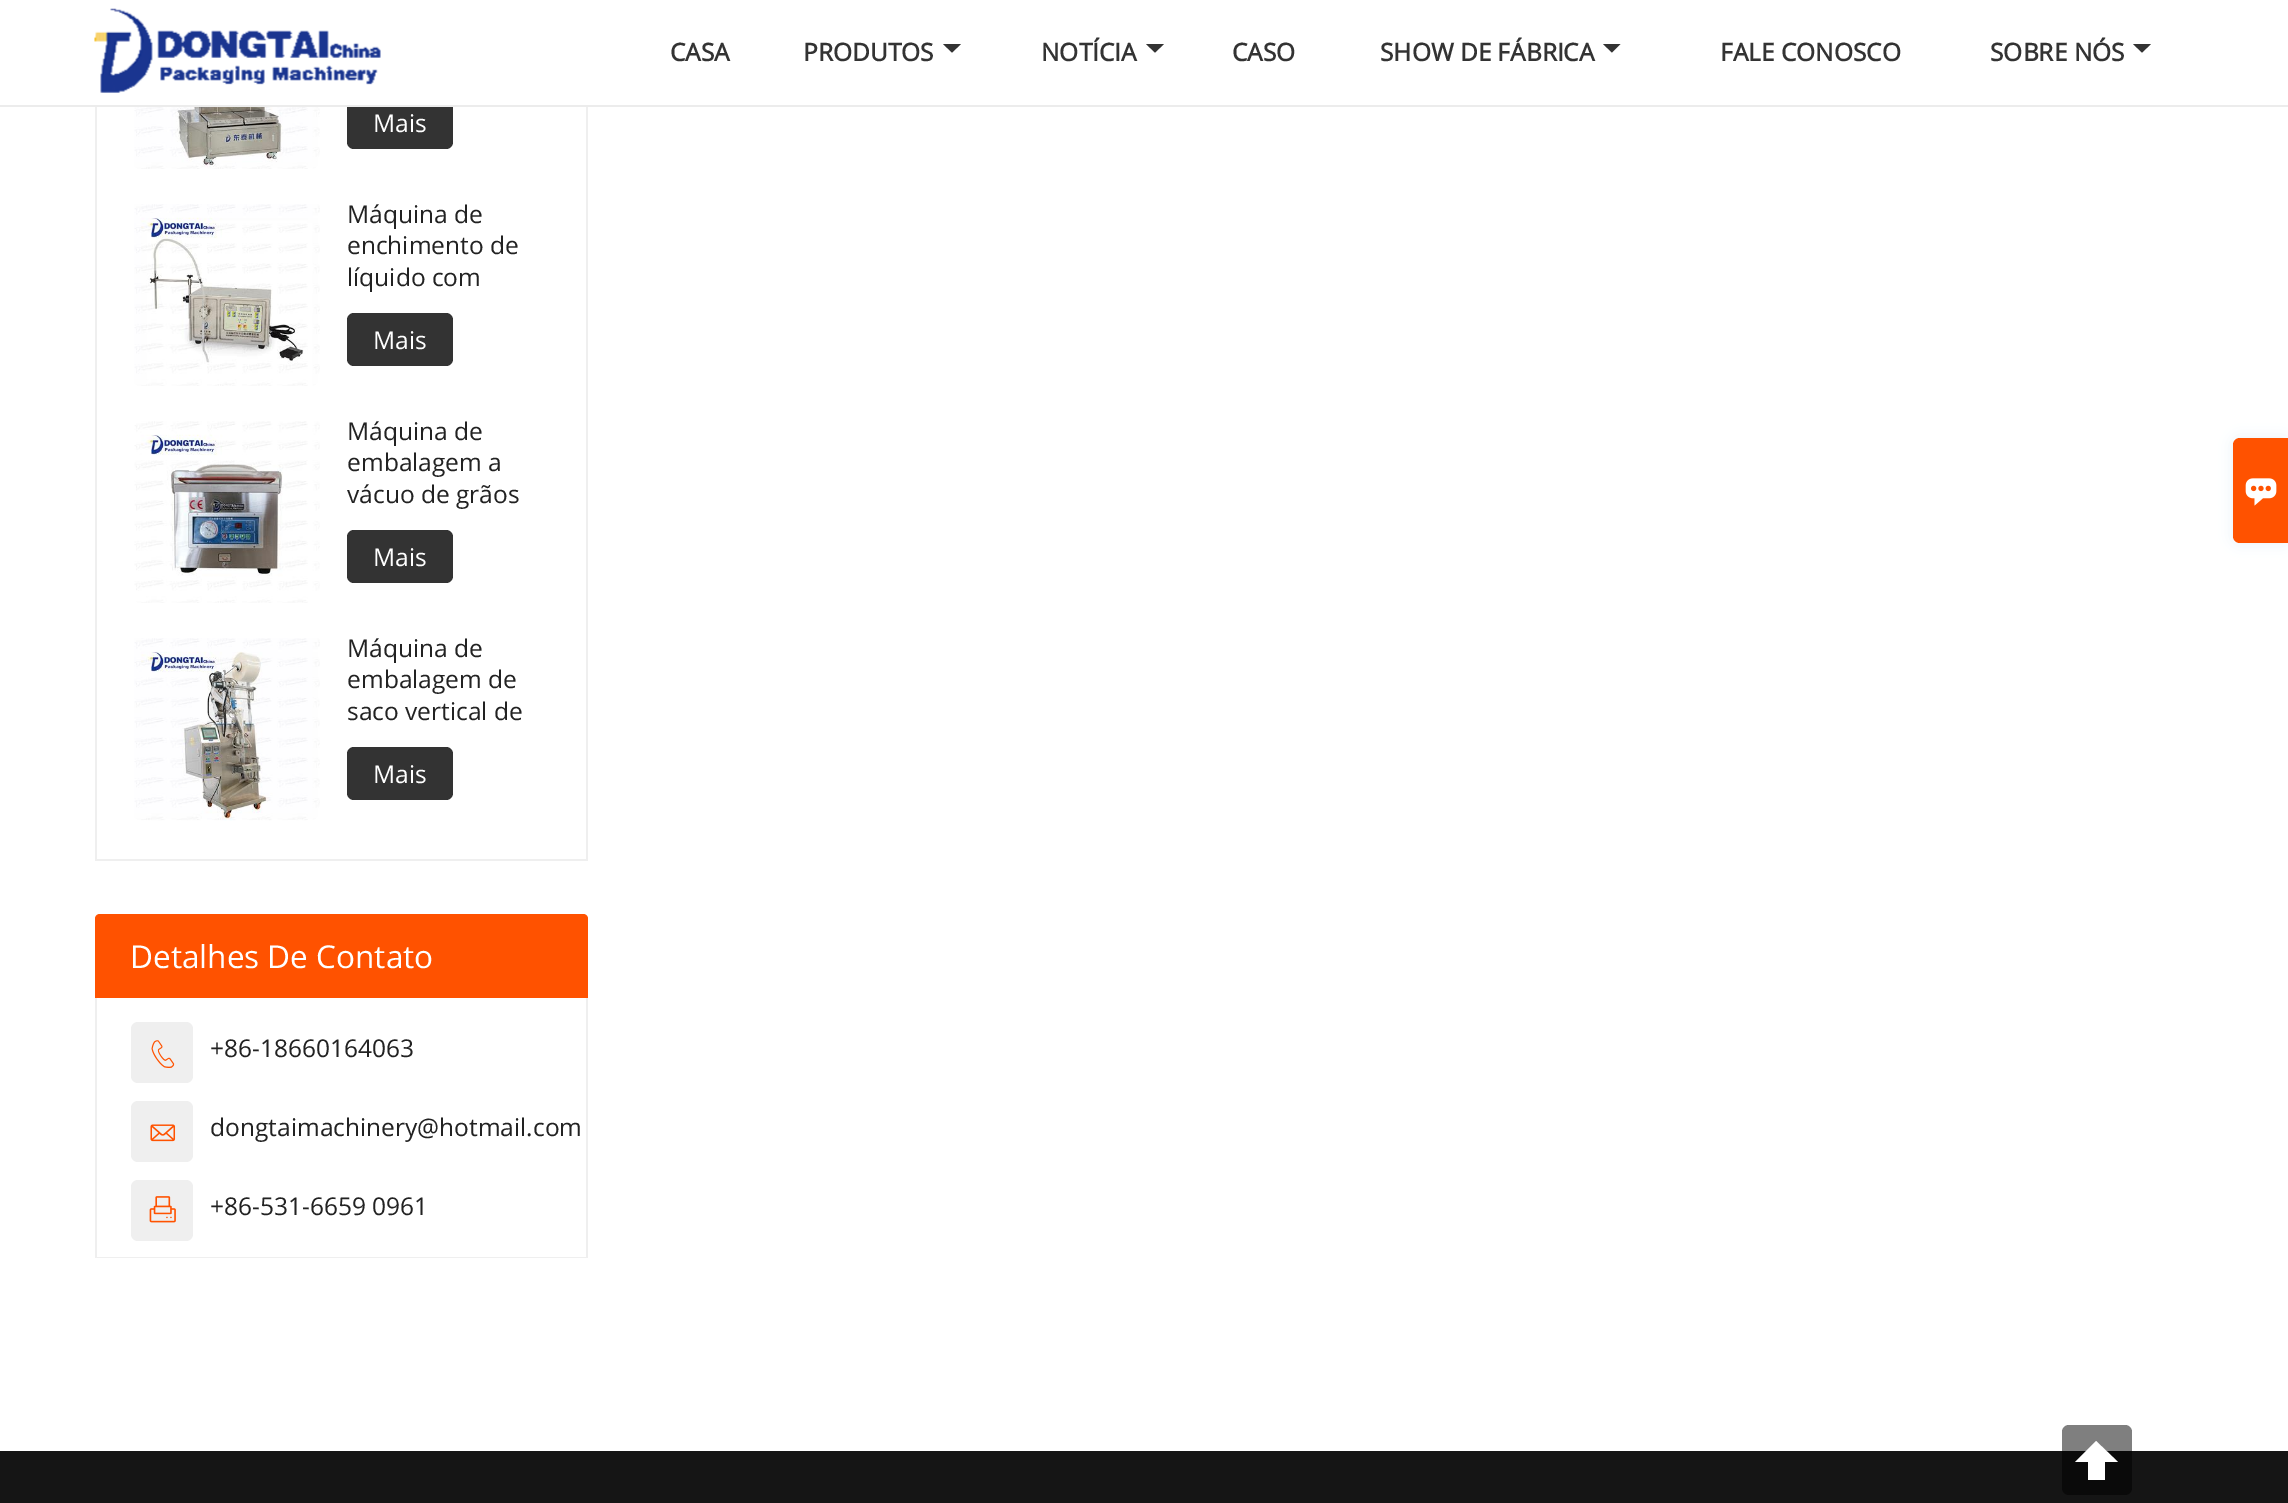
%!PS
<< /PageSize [2288 1503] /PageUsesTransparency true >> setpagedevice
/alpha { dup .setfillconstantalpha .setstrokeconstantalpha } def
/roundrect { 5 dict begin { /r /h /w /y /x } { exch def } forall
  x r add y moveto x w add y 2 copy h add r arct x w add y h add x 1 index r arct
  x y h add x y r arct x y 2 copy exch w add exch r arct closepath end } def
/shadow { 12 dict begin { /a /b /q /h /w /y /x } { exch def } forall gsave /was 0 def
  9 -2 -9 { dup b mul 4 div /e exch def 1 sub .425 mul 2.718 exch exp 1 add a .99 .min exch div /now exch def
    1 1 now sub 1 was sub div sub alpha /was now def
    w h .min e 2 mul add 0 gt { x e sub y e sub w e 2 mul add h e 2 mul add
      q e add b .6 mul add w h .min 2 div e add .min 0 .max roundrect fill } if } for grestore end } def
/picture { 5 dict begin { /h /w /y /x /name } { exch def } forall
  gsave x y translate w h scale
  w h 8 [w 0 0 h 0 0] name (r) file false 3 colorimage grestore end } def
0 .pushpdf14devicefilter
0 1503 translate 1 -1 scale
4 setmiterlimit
1 setgray
0 0 2288 1503 rectfill
0.2 setgray
347 96 106 53 7 roundrect fill
1 setgray
347 96 106 9 rectfill
0.925 setgray
0 105 2288 2 rectfill
(img1.rgb) 94 8 287 85 picture
/OpenSans-Bold [24.5 0 0 -24.5 0 0] selectfont
0.2 setgray
670 61 moveto (CASA) show
803 61 moveto (PRODUTOS) show
newpath 943 44 moveto 961 44 lineto 952 52.5 lineto closepath fill
1041 61 moveto (NOTÍCIA) show
newpath 1146 44 moveto 1164 44 lineto 1155 52.5 lineto closepath fill
1232 61 moveto (CASO) show
1380 61 moveto (SHOW DE FÁBRICA) show
newpath 1603 44 moveto 1620.5 44 lineto 1612 52.5 lineto closepath fill
1720 61 moveto (FALE CONOSCO) show
1990 61 moveto (SOBRE NÓS) show
newpath 2133 44 moveto 2151 44 lineto 2142 52.5 lineto closepath fill
0.937 setgray
586 107 2 754 rectfill
95 859 493 2 rectfill
95 107 2 754 rectfill
(img2.rgb) 134 107 186 62 picture
/OpenSans-Regular [24.5 0 0 -24.5 0 0] selectfont
1 setgray
373 132 moveto (Mais) show
(img3.rgb) 134 204 186 182 picture
0.133 setgray
347 223 moveto (Máquina de) show
347 254 moveto (enchimento de) show
347 286 moveto (líquido com) show
0.2 setgray
347 313 106 53 7 roundrect fill
1 setgray
373 349 moveto (Mais) show
(img4.rgb) 134 421 186 182 picture
0.133 setgray
347 440 moveto (Máquina de) show
347 471 moveto (embalagem a) show
347 503 moveto (vácuo de grãos) show
0.2 setgray
347 530 106 53 7 roundrect fill
1 setgray
373 566 moveto (Mais) show
(img5.rgb) 134 638 186 183 picture
0.133 setgray
347 657 moveto (Máquina de) show
347 688 moveto (embalagem de) show
347 720 moveto (saco vertical de) show
0.2 setgray
347 747 106 53 7 roundrect fill
1 setgray
373 783 moveto (Mais) show
1 0.322 0 setrgbcolor
newpath 100 914 moveto 583 914 lineto 586 914 588 916 588 919 curveto 588 998 lineto 95 998 lineto 95 919 lineto 95 916 97 914 100 914 curveto closepath fill
/OpenSans-Regular [31.5 0 0 -31.5 0 0] selectfont
1 setgray
130 968 moveto (Detalhes De Contato) show
0.937 setgray
586 998 2 260 rectfill
95 1257 493 1 rectfill
95 998 2 260 rectfill
131 1022 62 61 7 roundrect fill
(img6.rgb) 151 1040 24 28 picture
/OpenSans-Regular [24.5 0 0 -24.5 0 0] selectfont
0.133 setgray
210 1057 moveto (+86-18660164063) show
0.937 setgray
131 1101 62 61 7 roundrect fill
(img7.rgb) 150 1124 26 18 picture
0.133 setgray
210 1136 moveto (dongtaimachinery@hotmail.com) show
0.937 setgray
131 1180 62 61 7 roundrect fill
(img8.rgb) 149 1196 27 27 picture
0.133 setgray
210 1215 moveto (+86-531-6659 0961) show
0.082 setgray
0 1451 2288 52 rectfill
0.918 0.941 0.965 setrgbcolor
2233 438 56 105 7 7 1 shadow
1 0.322 0 setrgbcolor
newpath 2240 438 moveto 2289 438 lineto 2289 543 lineto 2240 543 lineto 2236 543 2233 540 2233 536 curveto 2233 445 lineto 2233 441 2236 438 2240 438 curveto closepath fill
(img9.rgb) 2245 478 32 28 picture
0.5 alpha
0 setgray
2062 1425 70 70 7 roundrect fill
1 alpha
1 setgray
newpath 2118 1462 moveto 2096 1441 lineto 2075 1462 lineto 2088 1462 lineto 2088 1480 lineto 2105 1480 lineto 2105 1462 lineto closepath fill
.poppdf14devicefilter showpage
